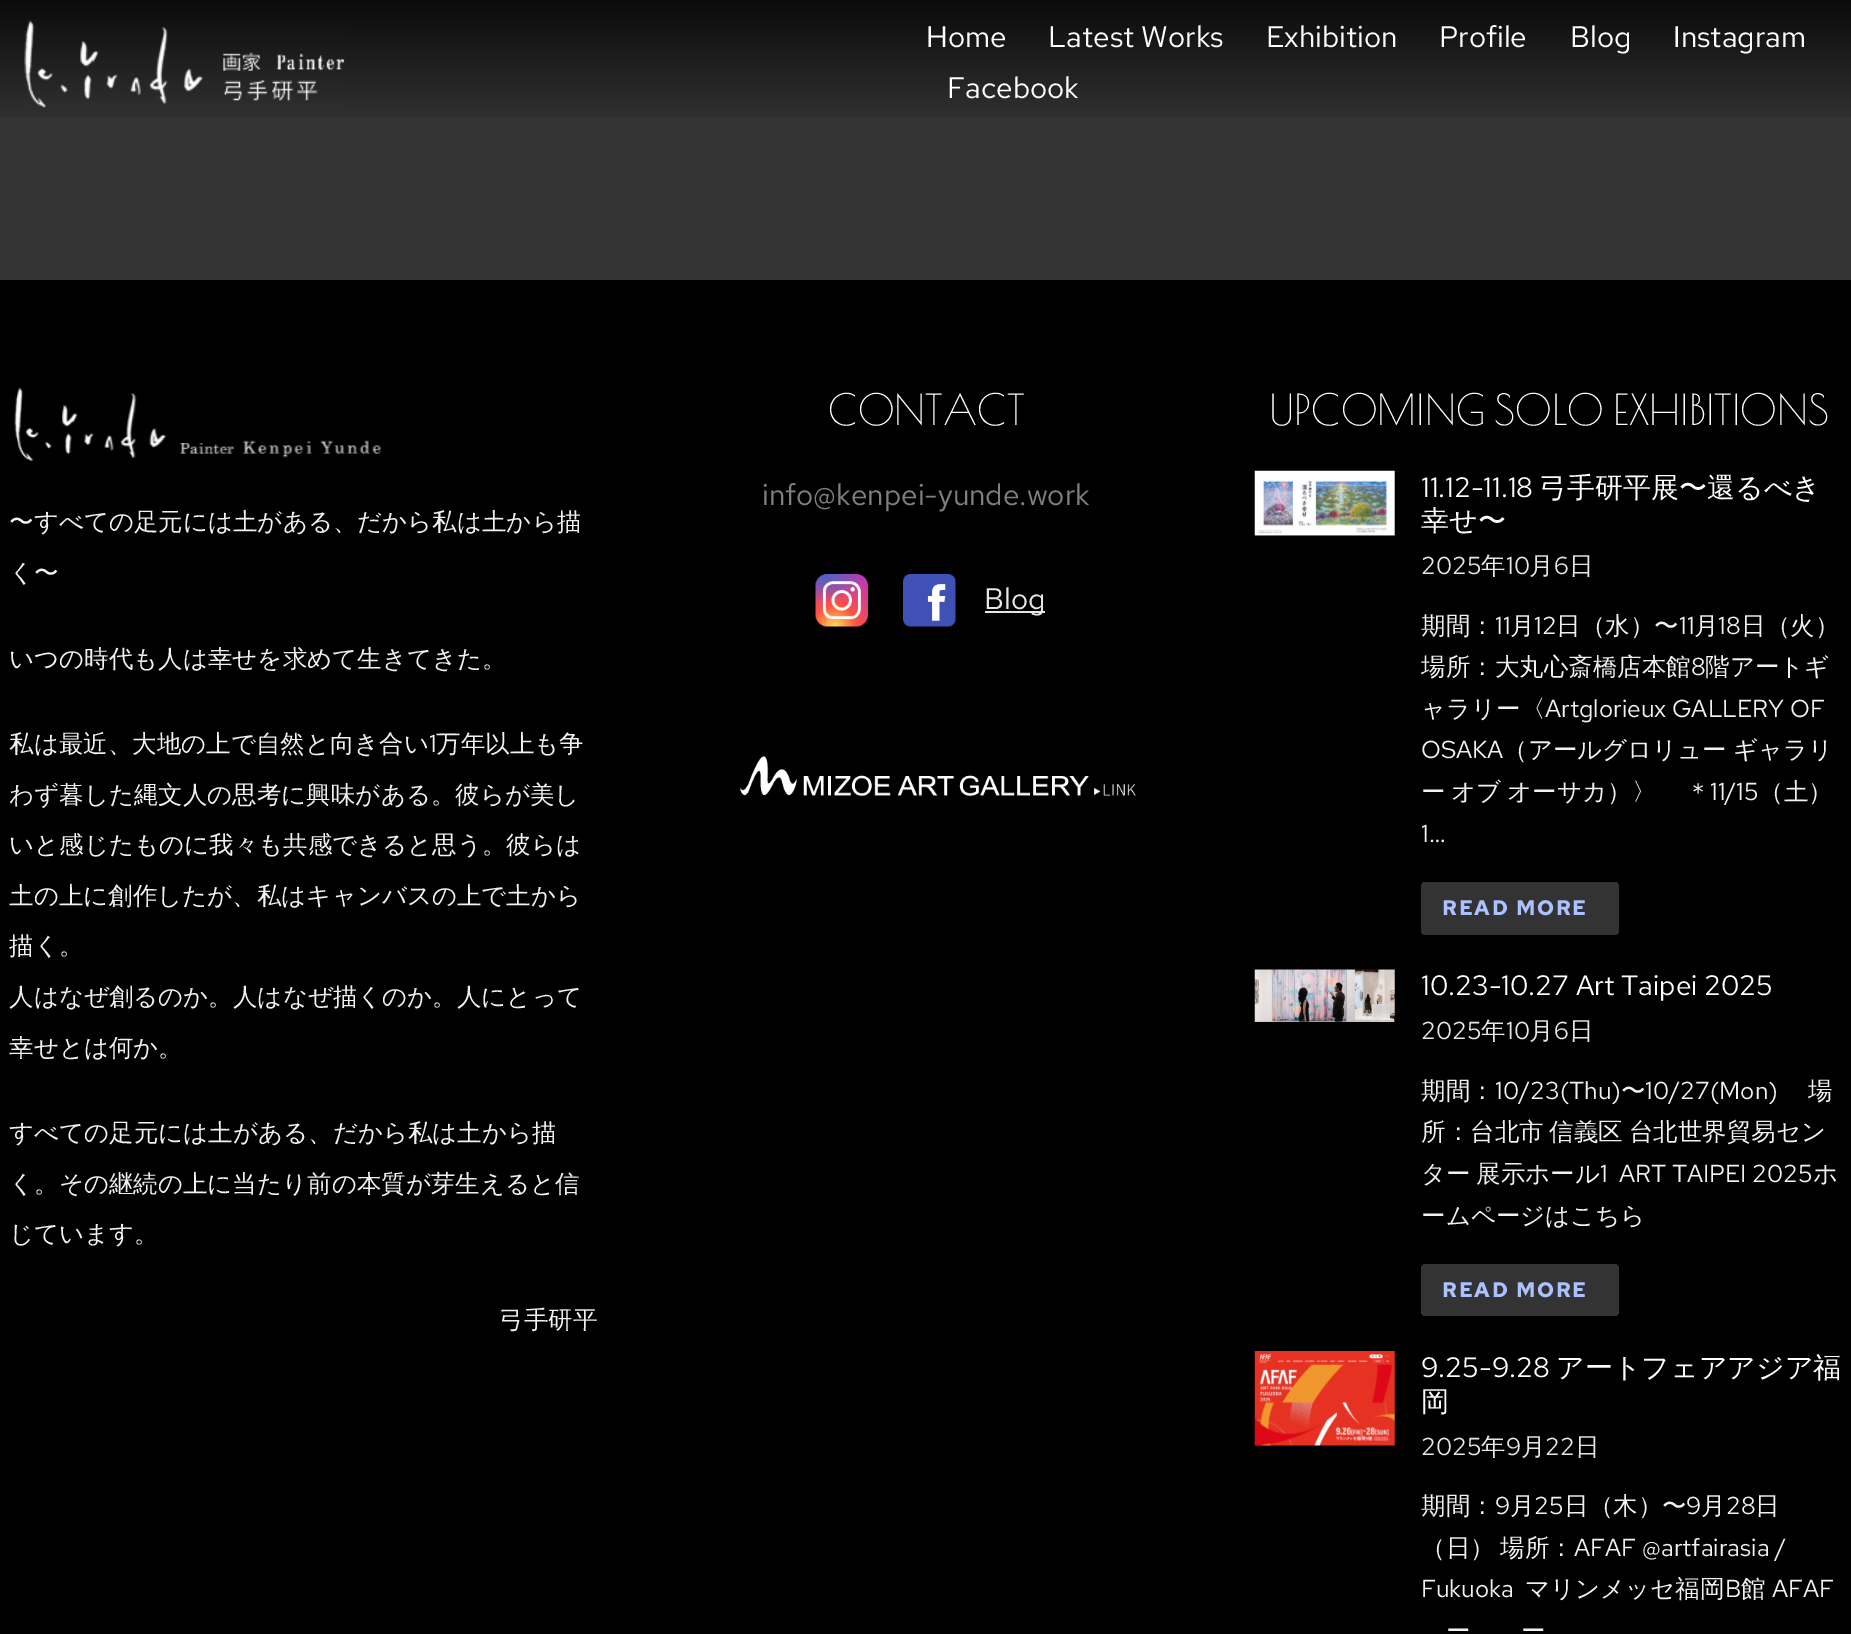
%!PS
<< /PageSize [1851 1634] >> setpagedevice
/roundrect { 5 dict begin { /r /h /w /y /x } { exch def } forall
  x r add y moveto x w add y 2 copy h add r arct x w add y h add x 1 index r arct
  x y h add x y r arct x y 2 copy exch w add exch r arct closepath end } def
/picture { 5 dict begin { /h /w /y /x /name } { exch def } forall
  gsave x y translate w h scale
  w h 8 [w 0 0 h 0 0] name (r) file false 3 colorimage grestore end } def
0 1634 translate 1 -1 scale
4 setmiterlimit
0.2 setgray
0 0 1851 1634 rectfill
gsave newpath 0 0 moveto 1851 0 lineto 1851 118 lineto 0 118 lineto closepath clip newpath
<< /ShadingType 2 /ColorSpace /DeviceRGB /Coords [926 0 926 126] /Extend [true true] /Function << /FunctionType 2 /Domain [0 1] /C0 [0.043 0.043 0.043] /C1 [0.2 0.2 0.2] /N 1 >> >> shfill grestore
(img1.rgb) 24 20 321 88 picture
/RedHatText-Regular [29.75 0 0 -29.75 0 0] selectfont
1 setgray
926 47 moveto (Home) show
1048 47 moveto (Latest Works) show
1266 47 moveto (Exhibition) show
1439 47 moveto (Profile) show
1570 47 moveto (Blog) show
1673 47 moveto (Instagram) show
947 98 moveto (Facebook) show
0 setgray
0 280 1851 1354 rectfill
(img2.rgb) 14 387 367 74 picture
/WenQuanYiZenHei-Medium [24.5 0 0 -24.5 0 0] selectfont
0.945 setgray
9 530 moveto (〜すべての足元には土がある、だから私は土から描) show
9 581 moveto (く〜) show
9 667 moveto (いつの時代も人は幸せを求めて生きてきた。) show
9 752 moveto (私は最近、大地の上で自然と向き合い 万年以上も争) show
/RedHatText-Regular [24.5 0 0 -24.5 0 0] selectfont
429 752 moveto (1) show
/WenQuanYiZenHei-Medium [24.5 0 0 -24.5 0 0] selectfont
9 803 moveto (わず暮した縄文人の思考に興味がある。彼らが美し) show
9 853 moveto (いと感じたものに我々も共感できると思う。彼らは) show
9 904 moveto (土の上に創作したが、私はキャンバスの上で土から) show
9 954 moveto (描く。) show
9 1005 moveto (人はなぜ創るのか。人はなぜ描くのか。人にとって) show
9 1056 moveto (幸せとは何か。) show
9 1141 moveto (すべての足元には土がある、だから私は土から描) show
9 1192 moveto (く。その継続の上に当たり前の本質が芽生えると信) show
9 1242 moveto (じています。) show
499 1328 moveto (弓手研平) show
/PoiretOne-Regular [42 0 0 -42 0 0] selectfont
1 setgray
828 425 moveto (CONTACT) show
/RedHatText-Regular [29.75 0 0 -29.75 0 0] selectfont
0.502 setgray
762 505 moveto (info@kenpei-yunde.work) show
(img3.rgb) 815 574 53 53 picture
(img4.rgb) 903 574 53 53 picture
0.894 0.902 0.914 setrgbcolor
985 611 60 2 rectfill
984 609 moveto (Blog) show
(img5.rgb) 739 756 397 41 picture
/PoiretOne-Regular [42 0 0 -42 0 0] selectfont
1 setgray
1269 425 moveto (UPCOMING SOLO EXHIBITIONS) show
(img6.rgb) 1254 470 141 66 picture
/RedHatText-Regular [28 0 0 -28 0 0] selectfont
1421 497 moveto (11.12-11.18) show
/WenQuanYiZenHei-Medium [28 0 0 -28 0 0] selectfont
1539 497 moveto (弓手研平展〜還るべき) show
1421 530 moveto (幸せ〜) show
/RedHatText-Regular [24.5 0 0 -24.5 0 0] selectfont
0.894 0.902 0.914 setrgbcolor
1421 574 moveto (2025) show
/WenQuanYiZenHei-Medium [24.5 0 0 -24.5 0 0] selectfont
1481 574 moveto (年) show
/RedHatText-Regular [24.5 0 0 -24.5 0 0] selectfont
1506 574 moveto (10) show
/WenQuanYiZenHei-Medium [24.5 0 0 -24.5 0 0] selectfont
1529 574 moveto (月) show
/RedHatText-Regular [24.5 0 0 -24.5 0 0] selectfont
1554 574 moveto (6) show
/WenQuanYiZenHei-Medium [24.5 0 0 -24.5 0 0] selectfont
1569 574 moveto (日) show
0.945 setgray
1421 634 moveto (期間：) show
/RedHatText-Regular [24.5 0 0 -24.5 0 0] selectfont
1495 634 moveto (11) show
/WenQuanYiZenHei-Medium [24.5 0 0 -24.5 0 0] selectfont
1510 634 moveto (月) show
/RedHatText-Regular [24.5 0 0 -24.5 0 0] selectfont
1534 634 moveto (12) show
/WenQuanYiZenHei-Medium [24.5 0 0 -24.5 0 0] selectfont
1556 634 moveto (日（水）〜) show
/RedHatText-Regular [24.5 0 0 -24.5 0 0] selectfont
1679 634 moveto (11) show
/WenQuanYiZenHei-Medium [24.5 0 0 -24.5 0 0] selectfont
1694 634 moveto (月) show
/RedHatText-Regular [24.5 0 0 -24.5 0 0] selectfont
1718 634 moveto (18) show
/WenQuanYiZenHei-Medium [24.5 0 0 -24.5 0 0] selectfont
1741 634 moveto (日（火）) show
1421 675 moveto (場所：大丸心斎橋店本館) show
/RedHatText-Regular [24.5 0 0 -24.5 0 0] selectfont
1691 675 moveto (8) show
/WenQuanYiZenHei-Medium [24.5 0 0 -24.5 0 0] selectfont
1705 675 moveto (階アートギ) show
1421 717 moveto (ャラリー〈) show
/RedHatText-Regular [24.5 0 0 -24.5 0 0] selectfont
1545 717 moveto (Artglorieux GALLERY OF) show
1421 758 moveto (OSAKA) show
/WenQuanYiZenHei-Medium [24.5 0 0 -24.5 0 0] selectfont
1503 758 moveto -1.5 0 32 (（アールグロリュー ギャラリ) widthshow
1421 800 moveto -1.5 0 32 (ー オブ オーサカ）〉　 ＊) widthshow
/RedHatText-Regular [24.5 0 0 -24.5 0 0] selectfont
1710 800 moveto (11/15) show
/WenQuanYiZenHei-Medium [24.5 0 0 -24.5 0 0] selectfont
1759 800 moveto (（土）) show
/RedHatText-Regular [24.5 0 0 -24.5 0 0] selectfont
1421 842 moveto (1…) show
0.2 setgray
1421 882 198 53 4 roundrect fill
/RedHatText-Bold [21 0 0 -21 0 0] selectfont
0.675 0.761 1 setrgbcolor
1442 915 moveto 1.75 0 (READ MORE) ashow
(img7.rgb) 1254 969 141 53 picture
/RedHatText-Regular [28 0 0 -28 0 0] selectfont
1 setgray
1421 995 moveto (10.23-10.27 Art Taipei 2025) show
/RedHatText-Regular [24.5 0 0 -24.5 0 0] selectfont
0.894 0.902 0.914 setrgbcolor
1421 1039 moveto (2025) show
/WenQuanYiZenHei-Medium [24.5 0 0 -24.5 0 0] selectfont
1481 1039 moveto (年) show
/RedHatText-Regular [24.5 0 0 -24.5 0 0] selectfont
1506 1039 moveto (10) show
/WenQuanYiZenHei-Medium [24.5 0 0 -24.5 0 0] selectfont
1529 1039 moveto (月) show
/RedHatText-Regular [24.5 0 0 -24.5 0 0] selectfont
1554 1039 moveto (6) show
/WenQuanYiZenHei-Medium [24.5 0 0 -24.5 0 0] selectfont
1569 1039 moveto (日) show
0.945 setgray
1421 1099 moveto (期間：) show
/RedHatText-Regular [24.5 0 0 -24.5 0 0] selectfont
1495 1099 moveto (10/23\(Thu\)) show
/WenQuanYiZenHei-Medium [24.5 0 0 -24.5 0 0] selectfont
1621 1099 moveto (〜) show
/RedHatText-Regular [24.5 0 0 -24.5 0 0] selectfont
1645 1099 moveto (10/27\(Mon\)) show
/WenQuanYiZenHei-Medium [24.5 0 0 -24.5 0 0] selectfont
1808 1099 moveto (場) show
1421 1140 moveto -1.5 0 32 (所：台北市 信義区 台北世界貿易セン) widthshow
1421 1182 moveto (ター) show
1476 1182 moveto (展示ホール) show
/RedHatText-Regular [24.5 0 0 -24.5 0 0] selectfont
1600 1182 moveto (1  ART TAIPEI 2025) show
/WenQuanYiZenHei-Medium [24.5 0 0 -24.5 0 0] selectfont
1813 1182 moveto (ホ) show
1421 1224 moveto (ームページはこちら) show
0.2 setgray
1421 1264 198 52 4 roundrect fill
/RedHatText-Bold [21 0 0 -21 0 0] selectfont
0.675 0.761 1 setrgbcolor
1442 1297 moveto 1.75 0 (READ MORE) ashow
(img8.rgb) 1254 1351 141 95 picture
/RedHatText-Regular [28 0 0 -28 0 0] selectfont
1 setgray
1421 1377 moveto (9.25-9.28) show
/WenQuanYiZenHei-Medium [28 0 0 -28 0 0] selectfont
1556 1377 moveto (アートフェアアジア福) show
1421 1411 moveto (岡) show
/RedHatText-Regular [24.5 0 0 -24.5 0 0] selectfont
0.894 0.902 0.914 setrgbcolor
1421 1455 moveto (2025) show
/WenQuanYiZenHei-Medium [24.5 0 0 -24.5 0 0] selectfont
1481 1455 moveto (年) show
/RedHatText-Regular [24.5 0 0 -24.5 0 0] selectfont
1506 1455 moveto (9) show
/WenQuanYiZenHei-Medium [24.5 0 0 -24.5 0 0] selectfont
1521 1455 moveto (月) show
/RedHatText-Regular [24.5 0 0 -24.5 0 0] selectfont
1545 1455 moveto (22) show
/WenQuanYiZenHei-Medium [24.5 0 0 -24.5 0 0] selectfont
1575 1455 moveto (日) show
0.945 setgray
1421 1514 moveto (期間：) show
/RedHatText-Regular [24.5 0 0 -24.5 0 0] selectfont
1495 1514 moveto (9) show
/WenQuanYiZenHei-Medium [24.5 0 0 -24.5 0 0] selectfont
1510 1514 moveto (月) show
/RedHatText-Regular [24.5 0 0 -24.5 0 0] selectfont
1534 1514 moveto (25) show
/WenQuanYiZenHei-Medium [24.5 0 0 -24.5 0 0] selectfont
1564 1514 moveto (日（木）〜) show
/RedHatText-Regular [24.5 0 0 -24.5 0 0] selectfont
1686 1514 moveto (9) show
/WenQuanYiZenHei-Medium [24.5 0 0 -24.5 0 0] selectfont
1701 1514 moveto (月) show
/RedHatText-Regular [24.5 0 0 -24.5 0 0] selectfont
1726 1514 moveto (28) show
/WenQuanYiZenHei-Medium [24.5 0 0 -24.5 0 0] selectfont
1755 1514 moveto (日) show
1421 1556 moveto (（日）) show
1500 1556 moveto (場所：) show
/RedHatText-Regular [24.5 0 0 -24.5 0 0] selectfont
1574 1556 moveto (AFAF @artfairasia /) show
1421 1597 moveto (Fukuoka) show
/WenQuanYiZenHei-Medium [24.5 0 0 -24.5 0 0] selectfont
1525 1597 moveto (マリンメッセ福岡) show
/RedHatText-Regular [24.5 0 0 -24.5 0 0] selectfont
1725 1597 moveto (B) show
/WenQuanYiZenHei-Medium [24.5 0 0 -24.5 0 0] selectfont
1741 1597 moveto (館) show
/RedHatText-Regular [24.5 0 0 -24.5 0 0] selectfont
1772 1597 moveto (AFAF) show
/WenQuanYiZenHei-Medium [24.5 0 0 -24.5 0 0] selectfont
1446 1639 moveto (ー) show
1521 1639 moveto (ー) show
showpage
